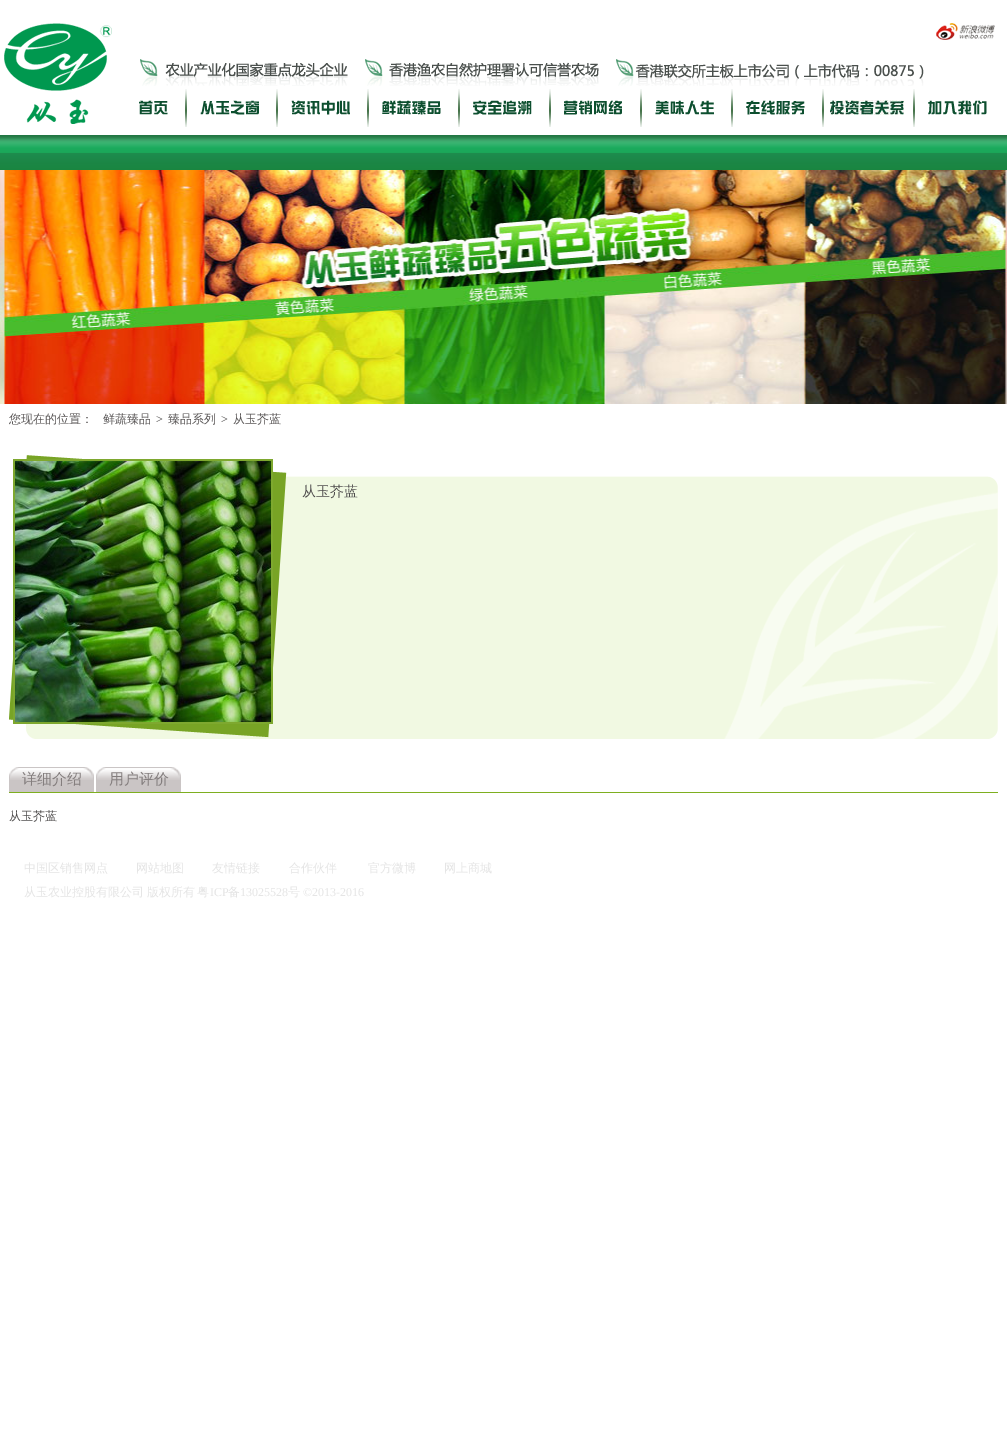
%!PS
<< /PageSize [1007 1439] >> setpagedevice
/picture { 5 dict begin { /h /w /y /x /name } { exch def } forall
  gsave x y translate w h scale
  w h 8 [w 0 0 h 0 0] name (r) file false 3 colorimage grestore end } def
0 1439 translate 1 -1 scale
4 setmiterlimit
1 setgray
0 0 1007 1439 rectfill
(img1.rgb) 4 23 108 101 picture
(img2.rgb) 936 23 59 17 picture
(img3.rgb) 140 59 208 27 picture
(img4.rgb) 365 59 234 27 picture
(img5.rgb) 616 59 308 27 picture
(img6.rgb) 139 100 29 15 picture
(img7.rgb) 185 89 2 38 picture
(img8.rgb) 200 100 59 15 picture
(img7.rgb) 276 89 2 38 picture
(img9.rgb) 291 100 59 15 picture
(img7.rgb) 367 89 2 38 picture
(img10.rgb) 382 100 59 15 picture
(img7.rgb) 458 89 2 38 picture
(img11.rgb) 473 100 59 15 picture
(img7.rgb) 549 89 2 38 picture
(img12.rgb) 564 100 58 15 picture
(img7.rgb) 640 89 2 38 picture
(img13.rgb) 655 100 59 15 picture
(img7.rgb) 731 89 2 38 picture
(img14.rgb) 746 100 59 15 picture
(img7.rgb) 822 89 2 38 picture
(img15.rgb) 830 100 74 15 picture
(img7.rgb) 913 89 2 38 picture
(img16.rgb) 928 100 59 15 picture
(img17.rgb) 0 135 1007 35 picture
(img18.rgb) 0 170 1007 234 picture
/WenQuanYiZenHei-Medium [12 0 0 -12 0 0] selectfont
0.349 0.337 0.337 setrgbcolor
9 423 moveto (您现在的位置：) show
103 423 moveto (鲜蔬臻品) show
/LiberationSerif-Regular [12 0 0 -12 0 0] selectfont
0.31 0.302 0.302 setrgbcolor
156 423 moveto (>) show
/WenQuanYiZenHei-Medium [12 0 0 -12 0 0] selectfont
0.349 0.337 0.337 setrgbcolor
168 423 moveto (臻品系列) show
/LiberationSerif-Regular [12 0 0 -12 0 0] selectfont
0.31 0.302 0.302 setrgbcolor
221 423 moveto (>) show
/WenQuanYiZenHei-Medium [12 0 0 -12 0 0] selectfont
0.349 0.337 0.337 setrgbcolor
233 423 moveto (从玉芥蓝) show
(img19.rgb) 9 455 989 284 picture
(img20.rgb) 15 461 256 261 picture
/WenQuanYiZenHei-Medium [14 0 0 -14 0 0] selectfont
0.31 0.302 0.302 setrgbcolor
302 496 moveto (从玉芥蓝) show
0.494 0.686 0.125 setrgbcolor
9 792 989 1 rectfill
(img21.rgb) 9 767 85 25 picture
/WenQuanYiZenHei-Medium [15 0 0 -15 0 0] selectfont
0.518 0.494 0.494 setrgbcolor
22 784 moveto (详细介绍) show
(img21.rgb) 96 767 85 25 picture
109 784 moveto (用户评价) show
/WenQuanYiZenHei-Medium [12 0 0 -12 0 0] selectfont
0.31 0.302 0.302 setrgbcolor
9 820 moveto (从玉芥蓝) show
0.898 setgray
24 872 moveto (中国区销售网点) show
136 872 moveto (网站地图) show
212 872 moveto (友情链接) show
289 872 moveto (合作伙伴) show
368 872 moveto (官方微博) show
444 872 moveto (网上商城) show
24 896 moveto -1 0 32 (从玉农业控股有限公司 版权所有 粤) widthshow
/LiberationSerif-Regular [12 0 0 -12 0 0] selectfont
210 896 moveto (ICP) show
/WenQuanYiZenHei-Medium [12 0 0 -12 0 0] selectfont
228 896 moveto (备) show
/LiberationSerif-Regular [12 0 0 -12 0 0] selectfont
240 896 moveto (13025528) show
/WenQuanYiZenHei-Medium [12 0 0 -12 0 0] selectfont
288 896 moveto (号) show
/LiberationSerif-Regular [12 0 0 -12 0 0] selectfont
303 896 moveto (©2013-2016) show
showpage
